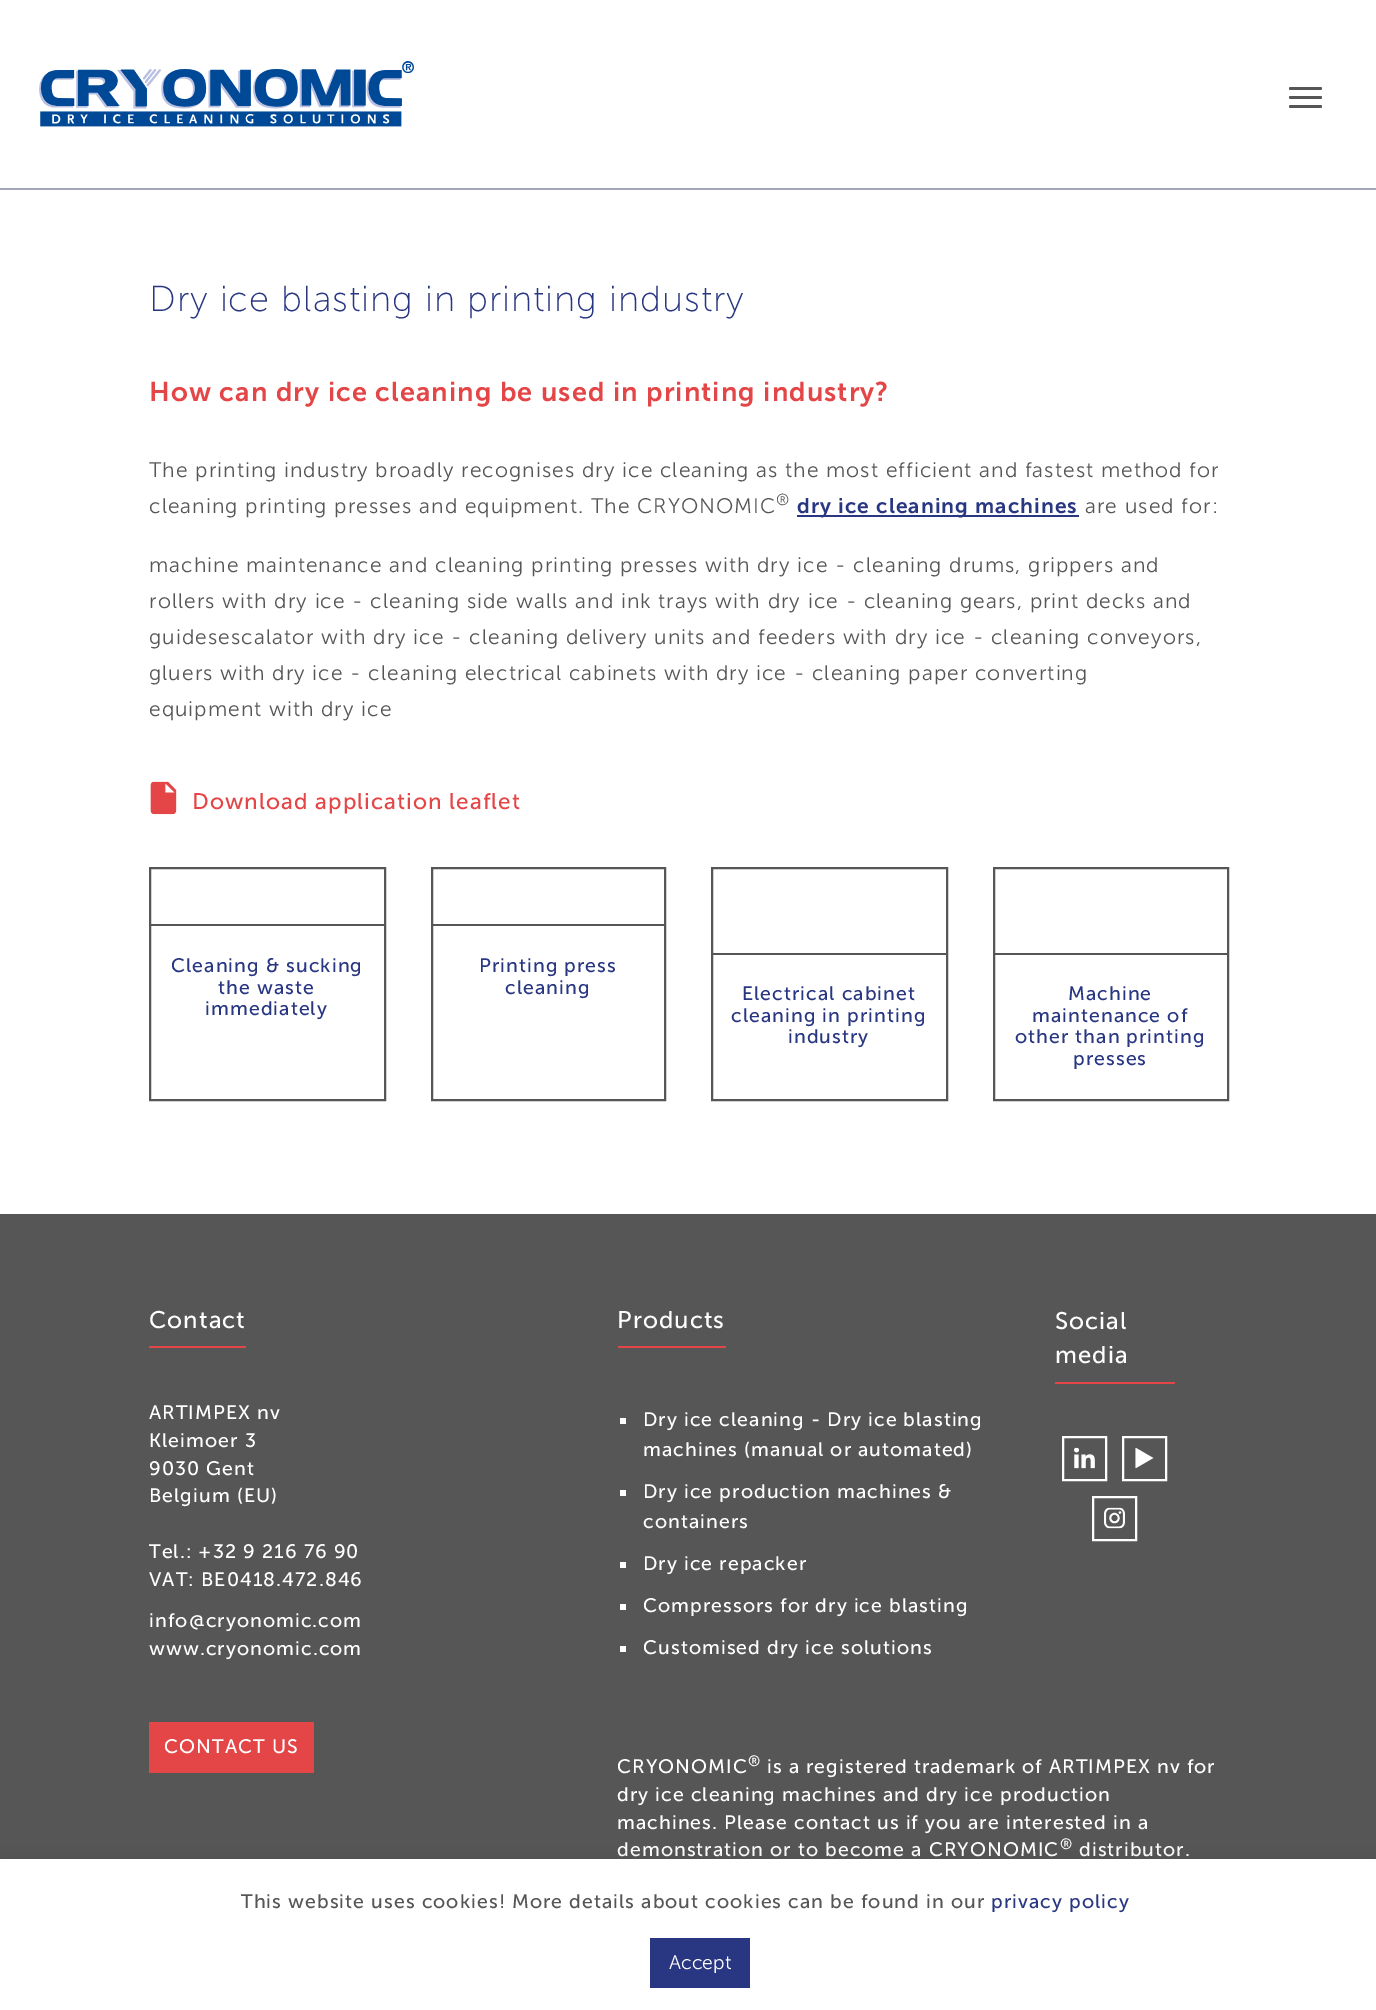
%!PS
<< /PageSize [1376 2010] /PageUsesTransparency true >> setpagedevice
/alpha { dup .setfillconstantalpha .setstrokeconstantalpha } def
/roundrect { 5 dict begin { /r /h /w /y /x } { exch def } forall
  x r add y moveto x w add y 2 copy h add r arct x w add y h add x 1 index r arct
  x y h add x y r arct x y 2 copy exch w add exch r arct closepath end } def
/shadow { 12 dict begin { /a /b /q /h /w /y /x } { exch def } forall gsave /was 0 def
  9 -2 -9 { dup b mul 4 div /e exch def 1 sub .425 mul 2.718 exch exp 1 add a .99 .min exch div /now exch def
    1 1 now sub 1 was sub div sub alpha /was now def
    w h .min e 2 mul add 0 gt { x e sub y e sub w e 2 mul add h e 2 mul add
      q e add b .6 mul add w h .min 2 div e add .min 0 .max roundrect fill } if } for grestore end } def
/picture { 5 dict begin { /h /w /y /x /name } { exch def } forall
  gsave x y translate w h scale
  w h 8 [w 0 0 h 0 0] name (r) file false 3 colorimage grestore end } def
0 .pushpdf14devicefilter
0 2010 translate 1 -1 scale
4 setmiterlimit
1 setgray
0 0 1376 2010 rectfill
0.643 0.655 0.725 setrgbcolor
0 188 1376 2 rectfill
(img1.rgb) 39 61 375 66 picture
0.337 setgray
1289 87 33 3 1.5 roundrect fill
1289 96 33 3 1.5 roundrect fill
1289 105 33 3 1.5 roundrect fill
/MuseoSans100-Light [36 0 0 -36 0 0] selectfont
0.161 0.216 0.51 setrgbcolor
149 311 moveto 1.05 0 (Dry ice blasting in printing industry) ashow
/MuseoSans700-SemiBold [27 0 0 -27 0 0] selectfont
0.894 0.275 0.278 setrgbcolor
149 401 moveto 1.05 0 (How can dry ice cleaning be used in printing industry?) ashow
/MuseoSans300-Light [21 0 0 -21 0 0] selectfont
0.337 setgray
149 477 moveto 1.05 0 (The printing industry broadly recognises dry ice cleaning as the most efficient and fastest method for) ashow
149 513 moveto 1.05 0 (cleaning printing presses and equipment. The CRYONOMIC) ashow
/MuseoSans300-Light [16 0 0 -16 0 0] selectfont
776 505 moveto 1.05 0 (®) ashow
0.161 0.216 0.51 setrgbcolor
797 515 282 2 rectfill
/MuseoSans700-SemiBold [21 0 0 -21 0 0] selectfont
797 513 moveto 1.05 0 (dry ice cleaning machines) ashow
/MuseoSans300-Light [21 0 0 -21 0 0] selectfont
0.337 setgray
1085 513 moveto 1.05 0 (are used for:) ashow
149 572 moveto 1.05 0 (machine maintenance and cleaning printing presses with dry ice - cleaning drums, grippers and) ashow
149 608 moveto 1.05 0 (rollers with dry ice - cleaning side walls and ink trays with dry ice - cleaning gears, print decks and) ashow
149 644 moveto 1.05 0 (guidesescalator with dry ice - cleaning delivery units and feeders with dry ice - cleaning conveyors,) ashow
149 680 moveto 1.05 0 (gluers with dry ice - cleaning electrical cabinets with dry ice - cleaning paper converting) ashow
149 716 moveto 1.05 0 (equipment with dry ice) ashow
(img2.rgb) 150 781 27 34 picture
/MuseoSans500-Regular [22.5 0 0 -22.5 0 0] selectfont
0.894 0.275 0.278 setrgbcolor
192 809 moveto 1.05 0 (Download application leaflet) ashow
0.337 setgray
2 setlinewidth
150 868 235 232 rectstroke
150 924 234 2 rectfill
/MuseoSans500-Regular [19.5 0 0 -19.5 0 0] selectfont
0.161 0.216 0.51 setrgbcolor
171 972 moveto 1.05 0 (Cleaning & sucking) ashow
218 994 moveto 1.05 0 (the waste) ashow
205 1015 moveto 1.05 0 (immediately) ashow
0.337 setgray
432 868 233 232 rectstroke
432 924 233 2 rectfill
0.161 0.216 0.51 setrgbcolor
479 972 moveto 1.05 0 (Printing press) ashow
505 994 moveto 1.05 0 (cleaning) ashow
0.337 setgray
712 868 235 232 rectstroke
713 953 234 2 rectfill
0.161 0.216 0.51 setrgbcolor
742 1000 moveto 1.05 0 (Electrical cabinet) ashow
731 1022 moveto 1.05 0 (cleaning in printing) ashow
788 1043 moveto 1.05 0 (industry) ashow
0.337 setgray
994 868 234 232 rectstroke
995 953 232 2 rectfill
0.161 0.216 0.51 setrgbcolor
1068 1000 moveto 1.05 0 (Machine) ashow
1032 1022 moveto 1.05 0 (maintenance of) ashow
1015 1043 moveto 1.05 0 (other than printing) ashow
1073 1065 moveto 1.05 0 (presses) ashow
0.337 setgray
0 1214 1376 645 rectfill
0.894 0.275 0.278 setrgbcolor
149 1346 97 2 rectfill
/MuseoSans500-Regular [24 0 0 -24 0 0] selectfont
1 setgray
149 1328 moveto 1.05 0 (Contact) ashow
/MuseoSans500-Regular [19.5 0 0 -19.5 0 0] selectfont
149 1419 moveto 1.05 0 (ARTIMPEX nv) ashow
149 1447 moveto 1.05 0 (Kleimoer 3) ashow
149 1475 moveto 1.05 0 (9030 Gent) ashow
149 1502 moveto 1.05 0 (Belgium \(EU\)) ashow
149 1558 moveto 1.05 0 (Tel.: +32 9 216 76 90) ashow
149 1586 moveto 1.05 0 (VAT: BE0418.472.846) ashow
149 1627 moveto 1.05 0 (info@cryonomic.com) ashow
149 1655 moveto 1.05 0 (www.cryonomic.com) ashow
0.894 0.275 0.278 setrgbcolor
149 1722 165 51 rectfill
1 setgray
164 1753 moveto 1.05 0 (CONTACT US) ashow
0.894 0.275 0.278 setrgbcolor
618 1346 108 2 rectfill
/MuseoSans500-Regular [24 0 0 -24 0 0] selectfont
1 setgray
617 1328 moveto 1.05 0 (Products) ashow
620 1418 6 6 rectfill
/MuseoSans500-Regular [19.5 0 0 -19.5 0 0] selectfont
643 1426 moveto 1.05 0 (Dry ice cleaning - Dry ice blasting) ashow
643 1456 moveto 1.05 0 (machines \(manual or automated\)) ashow
620 1490 6 6 rectfill
643 1498 moveto 1.05 0 (Dry ice production machines &) ashow
643 1528 moveto 1.05 0 (containers) ashow
620 1562 6 6 rectfill
643 1570 moveto 1.05 0 (Dry ice repacker) ashow
620 1604 6 6 rectfill
643 1612 moveto 1.05 0 (Compressors for dry ice blasting) ashow
620 1646 6 6 rectfill
643 1654 moveto 1.05 0 (Customised dry ice solutions) ashow
0.894 0.275 0.278 setrgbcolor
1055 1382 120 2 rectfill
/MuseoSans500-Regular [24 0 0 -24 0 0] selectfont
1 setgray
1055 1329 moveto 1.05 0 (Social) ashow
1055 1363 moveto 1.05 0 (media) ashow
1063 1437 43 43 rectstroke
(img3.rgb) 1074 1447 21 22 picture
1123 1437 43 43 rectstroke
(img4.rgb) 1135 1447 19 22 picture
1093 1497 43 43 rectstroke
(img5.rgb) 1104 1507 21 22 picture
/MuseoSans500-Regular [19.5 0 0 -19.5 0 0] selectfont
617 1773 moveto 1.05 0 (CRYONOMIC) ashow
/MuseoSans500-Regular [15 0 0 -15 0 0] selectfont
748 1766 moveto 1.05 0 (®) ashow
/MuseoSans500-Regular [19.5 0 0 -19.5 0 0] selectfont
767 1773 moveto 1.05 0 (is a registered trademark of ARTIMPEX nv for) ashow
617 1801 moveto 1.05 0 (dry ice cleaning machines and dry ice production) ashow
617 1829 moveto 1.05 0 (machines. Please contact us if you are interested in a) ashow
617 1856 moveto 1.05 0 (demonstration or to become a CRYONOMIC) ashow
/MuseoSans500-Regular [15 0 0 -15 0 0] selectfont
1060 1849 moveto 1.05 0 (®) ashow
/MuseoSans500-Regular [19.5 0 0 -19.5 0 0] selectfont
1079 1856 moveto 1.05 0 (distributor.) ashow
0 setgray
0 1859 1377 151 0 11 0.1 shadow
1 setgray
0 1859 1376 151 rectfill
0.337 setgray
241 1908 moveto 1.05 0 (This website uses cookies! More details about cookies can be found in our) ashow
0.161 0.216 0.51 setrgbcolor
991 1908 moveto 1.05 0 (privacy policy) ashow
650 1938 100 50 rectfill
/MuseoSans300-Light [19.5 0 0 -19.5 0 0] selectfont
1 setgray
669 1969 moveto (Accept) show
.poppdf14devicefilter showpage
